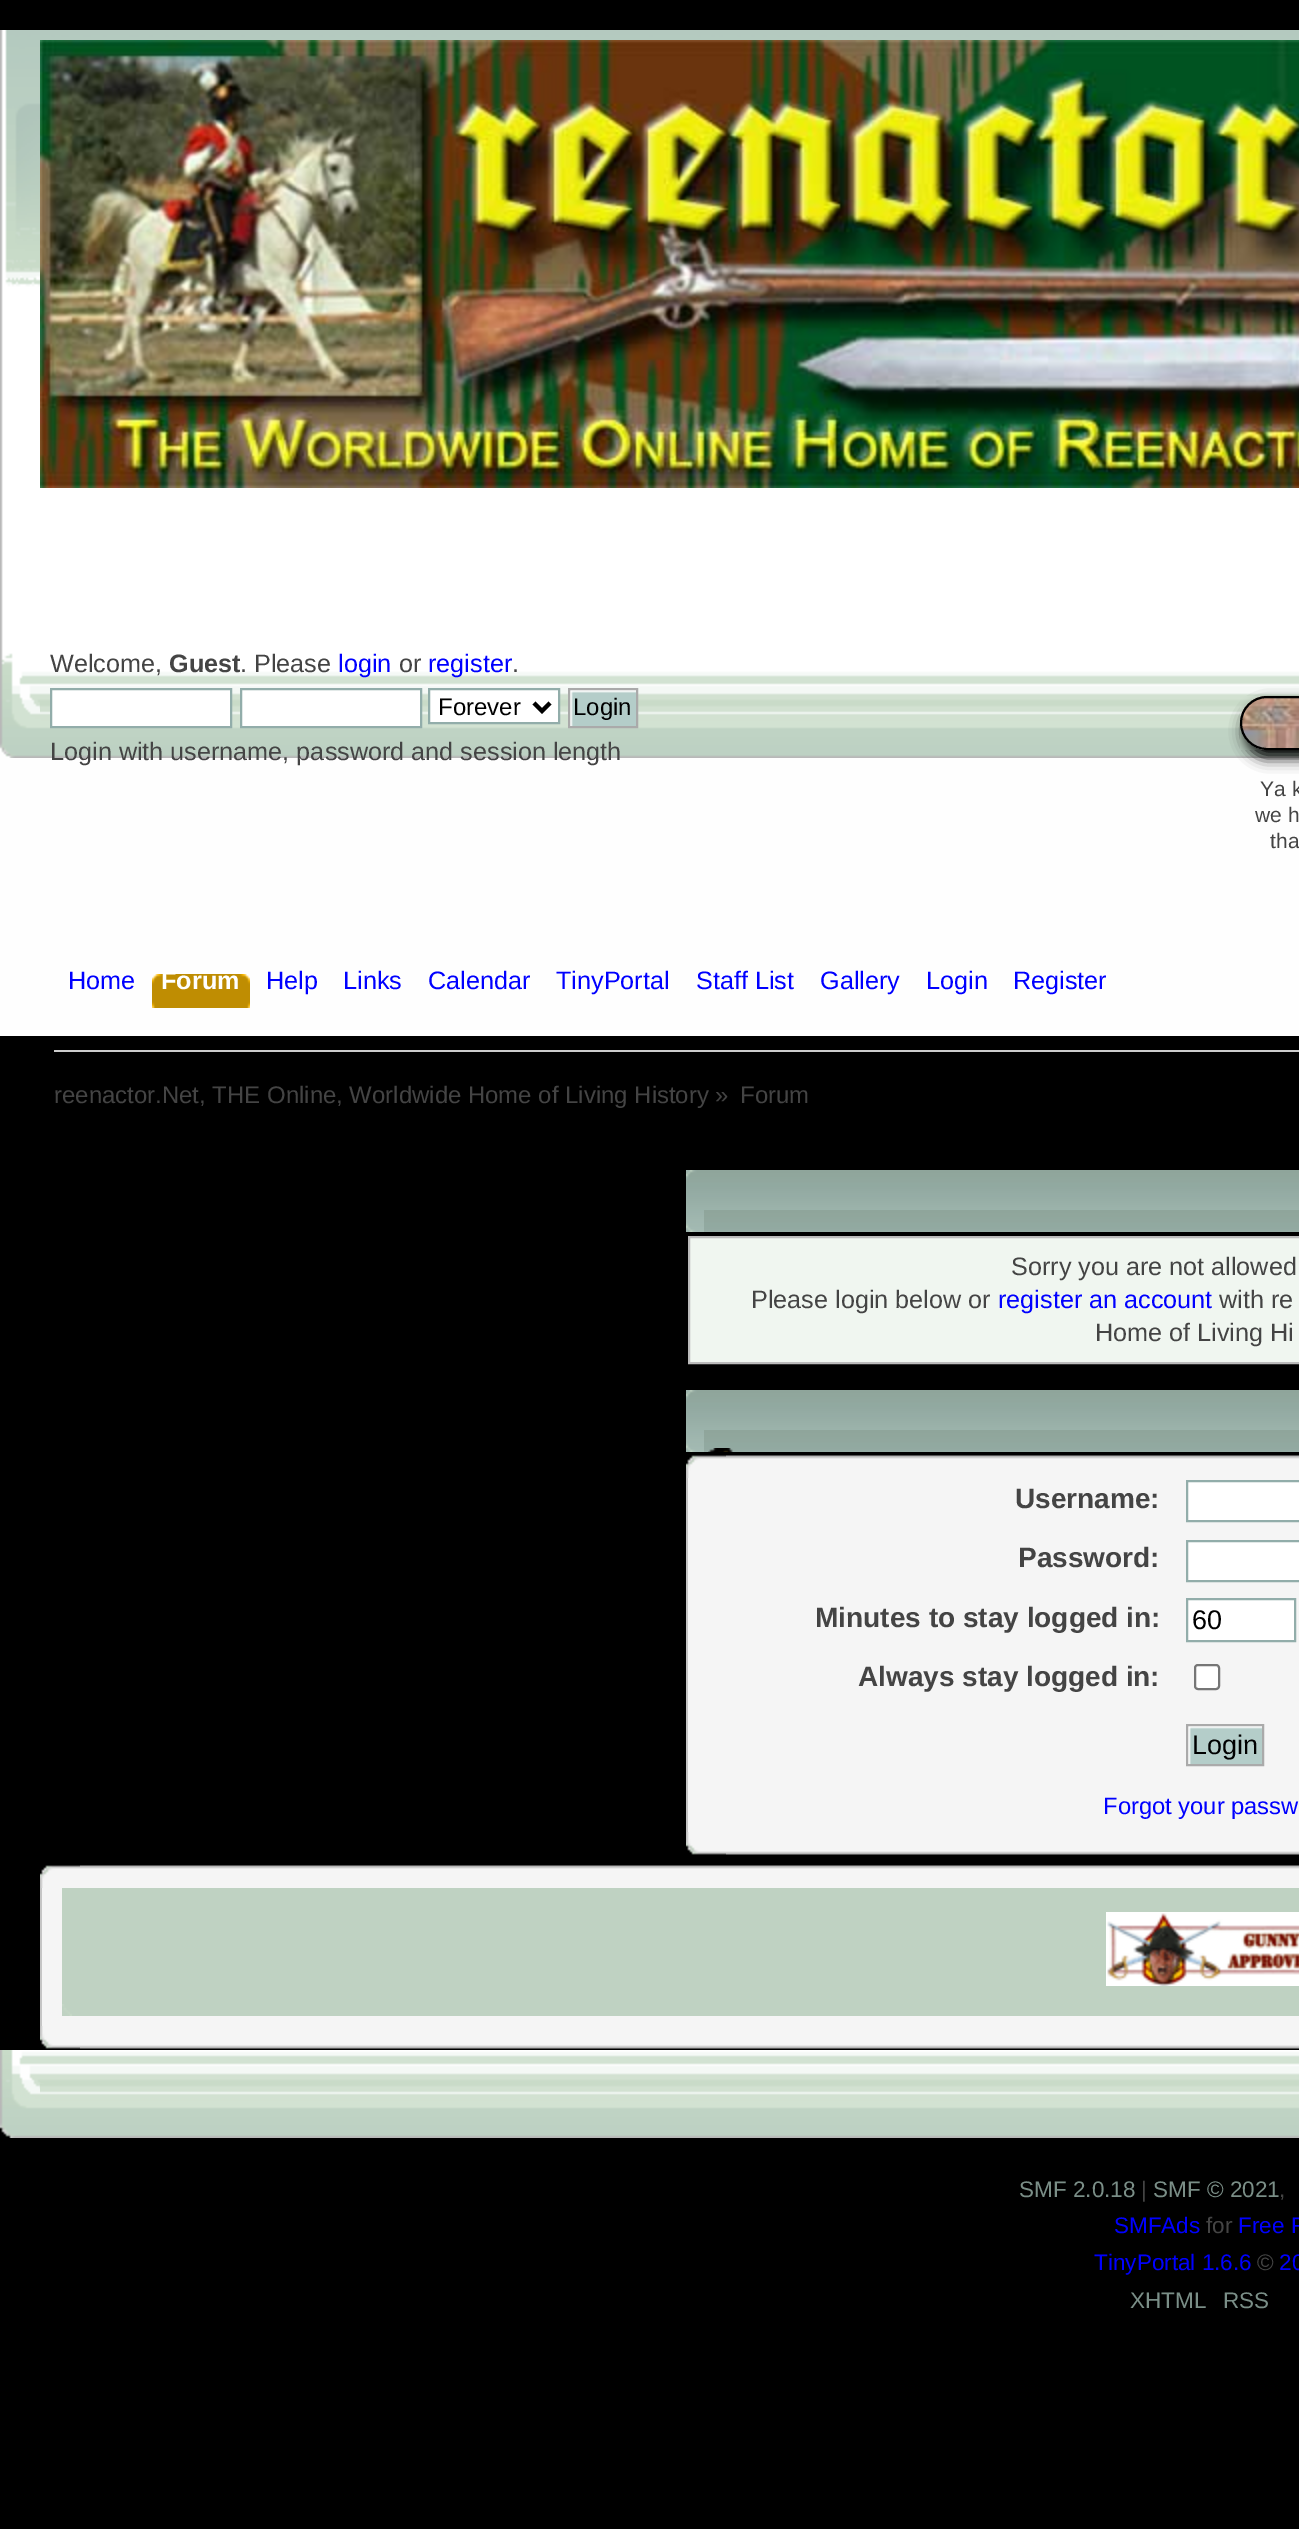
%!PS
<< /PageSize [1299 2529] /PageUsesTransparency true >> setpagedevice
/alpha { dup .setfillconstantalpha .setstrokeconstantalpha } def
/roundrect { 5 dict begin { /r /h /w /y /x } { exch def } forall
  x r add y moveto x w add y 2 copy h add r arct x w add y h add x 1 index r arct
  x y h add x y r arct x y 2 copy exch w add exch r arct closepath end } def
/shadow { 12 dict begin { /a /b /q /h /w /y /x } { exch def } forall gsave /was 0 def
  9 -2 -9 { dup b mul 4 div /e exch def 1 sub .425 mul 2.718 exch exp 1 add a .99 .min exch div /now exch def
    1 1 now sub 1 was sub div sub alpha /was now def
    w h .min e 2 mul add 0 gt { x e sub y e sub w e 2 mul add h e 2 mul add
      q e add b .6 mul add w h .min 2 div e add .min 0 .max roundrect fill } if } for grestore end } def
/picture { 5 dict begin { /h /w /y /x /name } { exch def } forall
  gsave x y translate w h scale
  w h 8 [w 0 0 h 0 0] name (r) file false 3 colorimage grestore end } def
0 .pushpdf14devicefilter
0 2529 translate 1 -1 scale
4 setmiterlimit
0 setgray
0 0 1299 2529 rectfill
0.996 setgray
0 747 1299 289 rectfill
(img1.rgb) 0 30 1299 728 picture
(img2.rgb) 40 488 1259 225 picture
(img3.rgb) 40 40 1259 448 picture
/LiberationSans-Regular [25.2 0 0 -25.2 0 0] selectfont
0.267 setgray
50 672 moveto (Welcome,) show
/LiberationSans-Bold [25.2 0 0 -25.2 0 0] selectfont
169 672 moveto (Guest) show
/LiberationSans-Regular [25.2 0 0 -25.2 0 0] selectfont
240 672 moveto (. Please) show
0 0 1 setrgbcolor
338 672 moveto (login) show
0.267 setgray
399 672 moveto (or) show
0 0 1 setrgbcolor
428 672 moveto (register) show
0.267 setgray
512 672 moveto (.) show
1 setgray
newpath 51 689 moveto 231 689 lineto 231 727 lineto 51 727 lineto closepath gsave fill grestore
0.573 0.678 0.667 setrgbcolor
2 setlinewidth
stroke
1 setgray
newpath 241 689 moveto 421 689 lineto 421 727 lineto 241 727 lineto closepath gsave fill grestore
0.573 0.678 0.667 setrgbcolor
stroke
1 setgray
newpath 429 689 moveto 559 689 lineto 559 723 lineto 429 723 lineto closepath gsave fill grestore
0.573 0.678 0.667 setrgbcolor
stroke
0 setgray
4 setlinewidth
newpath 534 703 moveto 542 711 lineto 550 703 lineto stroke
/LiberationSans-Regular [23.95 0 0 -23.95 0 0] selectfont
438 715 moveto (Forever) show
(img4.rgb) 570 690 66 36 picture
0.667 setgray
2 setlinewidth
569 689 68 38 rectstroke
0 setgray
573 715 moveto (Login) show
/LiberationSans-Regular [25.2 0 0 -25.2 0 0] selectfont
0.267 setgray
50 760 moveto (Login with username, password and session length) show
0 setgray
1244 704 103 54 27 7 1 shadow
(img5.rgb) 1240 696 59 54 picture
1241 697 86 52 26 roundrect stroke
/LiberationSans-Regular [21 0 0 -21 0 0] selectfont
0.267 setgray
1260 796 moveto (Ya k) show
1255 822 moveto (we h) show
1270 848 moveto (tha) show
/LiberationSans-Regular [25.2 0 0 -25.2 0 0] selectfont
0 0 1 setrgbcolor
68 989 moveto (Home) show
(img6.rgb) 163 974 87 34 picture
(img7.rgb) 152 974 11 34 picture
/LiberationSans-Bold [25.2 0 0 -25.2 0 0] selectfont
1 setgray
161 989 moveto (Forum) show
/LiberationSans-Regular [25.2 0 0 -25.2 0 0] selectfont
0 0 1 setrgbcolor
266 989 moveto (Help) show
343 989 moveto (Links) show
428 989 moveto (Calendar) show
556 989 moveto (TinyPortal) show
696 989 moveto (Staff List) show
820 989 moveto (Gallery) show
926 989 moveto (Login) show
1013 989 moveto (Register) show
0.8 setgray
54 1050 1245 2 rectfill
/LiberationSans-Regular [23.95 0 0 -23.95 0 0] selectfont
0.267 setgray
54 1103 moveto (reenactor.Net, THE Online, Worldwide Home of Living History ») show
740 1103 moveto (Forum) show
0.616 0.706 0.678 setrgbcolor
686 1170 5 62 rectfill
(img8.rgb) 686 1170 613 62 picture
(img9.rgb) 704 1210 595 22 picture
0.941 0.965 0.941 setrgbcolor
newpath 689 1237 moveto 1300 1237 lineto 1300 1363 lineto 689 1363 lineto closepath gsave fill grestore
0.733 setgray
stroke
/LiberationSans-Regular [25.2 0 0 -25.2 0 0] selectfont
0.267 setgray
1011 1275 moveto (Sorry you are not allowed) show
751 1308 moveto (Please login below or) show
0 0 1 setrgbcolor
998 1308 moveto (register an account) show
0.267 setgray
1219 1308 moveto (with re) show
1095 1341 moveto (Home of Living Hi) show
0.616 0.706 0.678 setrgbcolor
686 1390 5 62 rectfill
(img8.rgb) 686 1390 613 62 picture
(img9.rgb) 704 1430 595 22 picture
(img10.rgb) 708 1448 25 4 picture
(img11.rgb) 686 1455 613 23 picture
(img12.rgb) 726 1455 573 2 picture
0.961 setgray
688 1478 611 354 rectfill
0.773 setgray
686 1478 2 354 rectfill
/LiberationSans-Bold [28 0 0 -28 0 0] selectfont
0.267 setgray
1015 1508 moveto (Username:) show
1 setgray
newpath 1187 1481 moveto 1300 1481 lineto 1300 1521 lineto 1187 1521 lineto closepath gsave fill grestore
0.573 0.678 0.667 setrgbcolor
stroke
0.267 setgray
1018 1567 moveto (Password:) show
1 setgray
newpath 1187 1541 moveto 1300 1541 lineto 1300 1581 lineto 1187 1581 lineto closepath gsave fill grestore
0.573 0.678 0.667 setrgbcolor
stroke
0.267 setgray
815 1627 moveto (Minutes to stay logged in:) show
1 setgray
newpath 1187 1599 moveto 1295 1599 lineto 1295 1641 lineto 1187 1641 lineto closepath gsave fill grestore
0.573 0.678 0.667 setrgbcolor
stroke
/LiberationSans-Regular [27 0 0 -27 0 0] selectfont
0 setgray
1192 1629 moveto (60) show
/LiberationSans-Bold [28 0 0 -28 0 0] selectfont
0.267 setgray
858 1686 moveto (Always stay logged in:) show
1 setgray
1195 1665 24 24 3 roundrect gsave fill grestore
0.463 setgray
stroke
(img13.rgb) 1188 1726 74 38 picture
0.667 setgray
1187 1725 76 40 rectstroke
/LiberationSans-Regular [27 0 0 -27 0 0] selectfont
0 setgray
1192 1754 moveto (Login) show
/LiberationSans-Regular [23.75 0 0 -23.75 0 0] selectfont
0 0 1 setrgbcolor
1103 1814 moveto (Forgot your passw) show
(img14.rgb) 686 1832 613 23 picture
(img15.rgb) 726 1853 573 2 picture
(img16.rgb) 40 1865 1259 23 picture
(img17.rgb) 80 1865 1219 2 picture
0.961 setgray
42 1888 1257 138 rectfill
0.773 setgray
40 1888 2 138 rectfill
0.749 0.824 0.761 setrgbcolor
62 1888 1237 128 rectfill
(img18.rgb) 1106 1912 193 74 picture
(img19.rgb) 62 2004 10 12 picture
(img20.rgb) 40 2026 1259 23 picture
(img21.rgb) 80 2047 1219 2 picture
(img22.rgb) 0 2050 1299 88 picture
(img23.rgb) 40 2084 15 9 picture
/LiberationSans-Regular [22.5 0 0 -22.5 0 0] selectfont
0.478 0.557 0.529 setrgbcolor
1019 2197 moveto (SMF 2.0.18) show
0.267 setgray
1141 2197 moveto (|) show
0.478 0.557 0.529 setrgbcolor
1153 2197 moveto (SMF © 2021) show
0.267 setgray
1279 2197 moveto (,) show
0 0 1 setrgbcolor
1114 2233 moveto (SMFAds) show
0.267 setgray
1206 2233 moveto (for) show
0 0 1 setrgbcolor
1238 2233 moveto (Free F) show
1094 2270 moveto (TinyPortal 1.6.6) show
0.267 setgray
1257 2270 moveto (©) show
0 0 1 setrgbcolor
1279 2270 moveto (20) show
0.478 0.557 0.529 setrgbcolor
1130 2308 moveto (XHTML) show
1223 2308 moveto (RSS) show
.poppdf14devicefilter showpage
